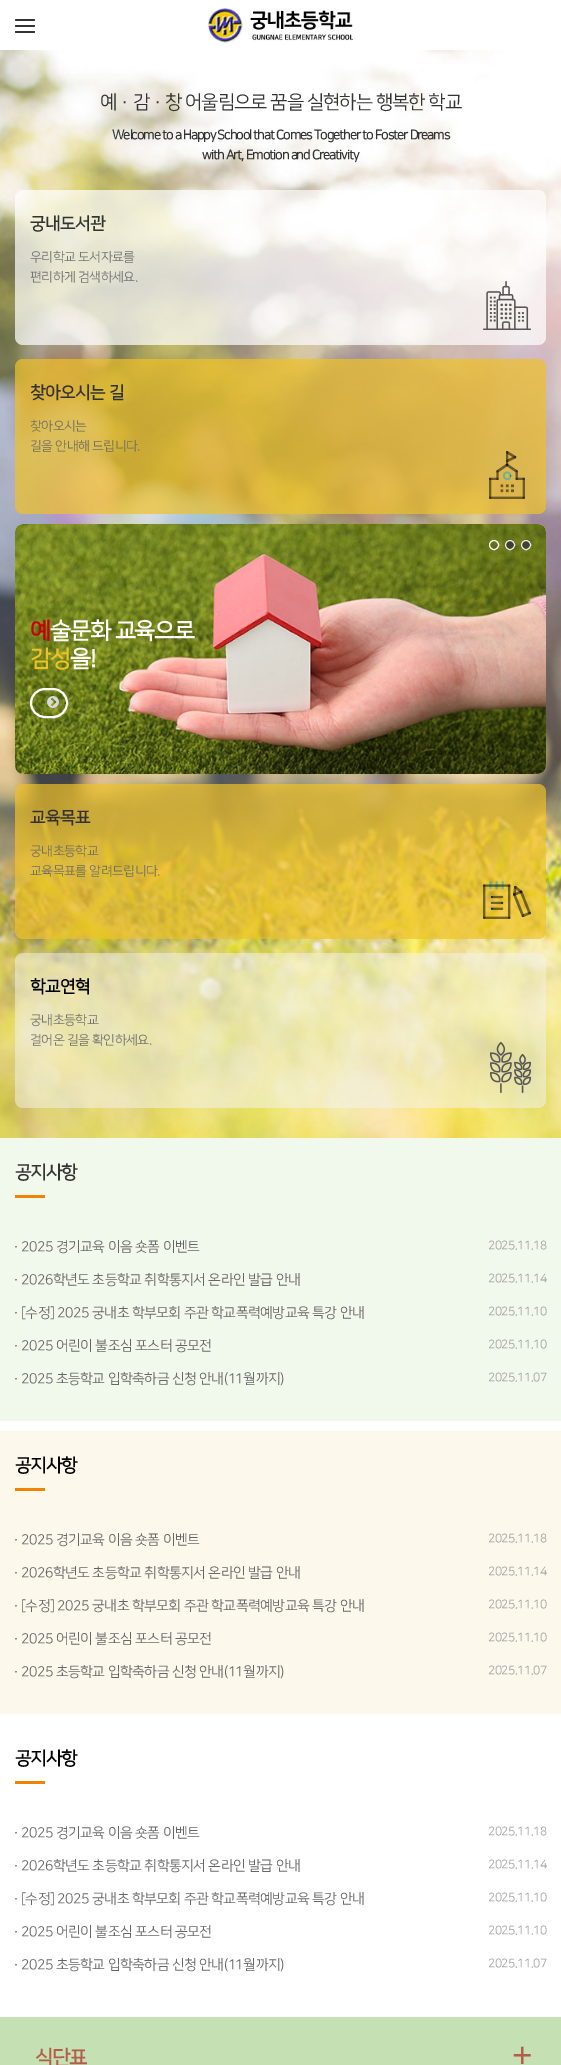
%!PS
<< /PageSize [561 2065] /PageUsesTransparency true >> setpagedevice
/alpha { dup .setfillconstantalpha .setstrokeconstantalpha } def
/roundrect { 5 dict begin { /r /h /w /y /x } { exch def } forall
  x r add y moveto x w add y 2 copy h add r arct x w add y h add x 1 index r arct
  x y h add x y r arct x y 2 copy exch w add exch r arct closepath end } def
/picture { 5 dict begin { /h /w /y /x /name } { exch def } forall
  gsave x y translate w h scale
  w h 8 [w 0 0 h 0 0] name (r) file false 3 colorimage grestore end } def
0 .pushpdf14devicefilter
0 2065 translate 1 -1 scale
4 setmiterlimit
1 setgray
0 0 561 2065 rectfill
(img1.rgb) 15 19 20 14 picture
(img2.rgb) 208 8 145 35 picture
(img3.rgb) 0 50 561 1088 picture
/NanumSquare-Regular [19 0 0 -19 0 0] selectfont
0.2 setgray
100 108 moveto -1 0 (예·감·창 어울림으로 꿈을 실현하는 행복한 학교) ashow
/NanumSquare-Bold [13 0 0 -13 0 0] selectfont
112 139 moveto -1 0 (Welcome to a Happy School that Comes Together to Foster Dreams) ashow
202 159 moveto -1 0 (with Art, Emotion and Creativity) ashow
0.7 alpha
1 setgray
15 190 531 155 8 roundrect fill
/NanumSquare-Bold [17 0 0 -17 0 0] selectfont
1 alpha
0.2 setgray
30 229 moveto -0.5 0 (궁내도서관) ashow
/NanumSquare-Regular [13 0 0 -13 0 0] selectfont
0.451 0.451 0.443 setrgbcolor
30 261 moveto -0.5 0 (우리학교 도서자료를) ashow
30 281 moveto -0.5 0 (편리하게 검색하세요.) ashow
(img4.rgb) 483 281 48 49 picture
0.7 alpha
0.937 0.757 0.153 setrgbcolor
15 359 531 155 8 roundrect fill
/NanumSquare-Bold [17 0 0 -17 0 0] selectfont
1 alpha
0.2 setgray
30 398 moveto -0.5 0 (찾아오시는 길) ashow
/NanumSquare-Regular [13 0 0 -13 0 0] selectfont
0.447 0.435 0.392 setrgbcolor
30 430 moveto -0.5 0 (찾아오시는) ashow
30 450 moveto -0.5 0 (길을 안내해 드립니다.) ashow
(img5.rgb) 489 451 36 48 picture
1 setgray
15 524 531 250 8 roundrect fill
(img6.rgb) 15 524 531 250 picture
0.2 alpha
0.2 setgray
newpath 494 545 4.5 0 360 arc closepath fill
1 alpha
1 setgray
newpath 494 545 4.5 0 360 arc closepath stroke
0.8 alpha
0.2 setgray
newpath 510 545 5 0 360 arc closepath fill
0.9 alpha
1 setgray
newpath 510 545 4.5 0 360 arc closepath stroke
0.8 alpha
0.2 setgray
newpath 526 545 5 0 360 arc closepath fill
0.9 alpha
1 setgray
newpath 526 545 4.5 0 360 arc closepath stroke
/NanumSquare-Bold [23 0 0 -23 0 0] selectfont
1 alpha
0.784 0 0 setrgbcolor
30 638 moveto -1 0 (예) ashow
1 setgray
50 638 moveto -1 0 (술문화 교육으로) ashow
0.937 0.757 0.153 setrgbcolor
30 666 moveto -1 0 (감성) ashow
1 setgray
70 666 moveto -1 0 (을!) ashow
2 setlinewidth
31 689 36 28 14 roundrect stroke
(img7.rgb) 47 696 12 12 picture
0.7 alpha
0.937 0.757 0.153 setrgbcolor
15 784 531 155 8 roundrect fill
/NanumSquare-Bold [17 0 0 -17 0 0] selectfont
1 alpha
0.2 setgray
30 823 moveto -0.5 0 (교육목표) ashow
/NanumSquare-Regular [13 0 0 -13 0 0] selectfont
0.447 0.435 0.392 setrgbcolor
30 855 moveto -0.5 0 (궁내초등학교) ashow
30 875 moveto -0.5 0 (교육목표를 알려드립니다.) ashow
(img8.rgb) 483 881 48 38 picture
0.5 alpha
0.949 setgray
15 953 531 155 8 roundrect fill
/NanumSquare-Bold [17 0 0 -17 0 0] selectfont
1 alpha
0 setgray
30 992 moveto -0.5 0 (학교연혁) ashow
/NanumSquare-Regular [13 0 0 -13 0 0] selectfont
0.451 0.451 0.443 setrgbcolor
30 1024 moveto -0.5 0 (궁내초등학교) ashow
30 1044 moveto -0.5 0 (걸어온 길을 확인하세요.) ashow
(img9.rgb) 490 1042 41 51 picture
0.945 0.973 0.925 setrgbcolor
0 1138 561 283 rectfill
/NanumSquare-Bold [18 0 0 -18 0 0] selectfont
0.2 setgray
15 1178 moveto -1 0 (공지사항) ashow
0.941 0.514 0 setrgbcolor
15 1195 30 3 rectfill
(img10.rgb) 15 1246 2 2 picture
/NanumSquare-Regular [14 0 0 -14 0 0] selectfont
0.4 setgray
21 1251 moveto -0.5 0 (2025 경기교육 이음 숏폼 이벤트) ashow
/NanumSquare-Regular [12 0 0 -12 0 0] selectfont
0.627 setgray
488 1249 moveto -0.5 0 (2025.11.18) ashow
(img10.rgb) 15 1279 2 2 picture
/NanumSquare-Regular [14 0 0 -14 0 0] selectfont
0.4 setgray
21 1284 moveto -0.5 0 (2026학년도 초등학교 취학통지서 온라인 발급 안내) ashow
/NanumSquare-Regular [12 0 0 -12 0 0] selectfont
0.627 setgray
488 1282 moveto -0.5 0 (2025.11.14) ashow
(img10.rgb) 15 1312 2 2 picture
/NanumSquare-Regular [14 0 0 -14 0 0] selectfont
0.4 setgray
21 1317 moveto -0.5 0 ([수정] 2025 궁내초 학부모회 주관 학교폭력예방교육 특강 안내) ashow
/NanumSquare-Regular [12 0 0 -12 0 0] selectfont
0.627 setgray
488 1315 moveto -0.5 0 (2025.11.10) ashow
(img10.rgb) 15 1345 2 2 picture
/NanumSquare-Regular [14 0 0 -14 0 0] selectfont
0.4 setgray
21 1350 moveto -0.5 0 (2025 어린이 불조심 포스터 공모전) ashow
/NanumSquare-Regular [12 0 0 -12 0 0] selectfont
0.627 setgray
488 1348 moveto -0.5 0 (2025.11.10) ashow
(img10.rgb) 15 1378 2 2 picture
/NanumSquare-Regular [14 0 0 -14 0 0] selectfont
0.4 setgray
21 1383 moveto -0.5 0 (2025 초등학교 입학축하금 신청 안내\(11월까지\)) ashow
/NanumSquare-Regular [12 0 0 -12 0 0] selectfont
0.627 setgray
488 1381 moveto -0.5 0 (2025.11.07) ashow
0.988 0.973 0.922 setrgbcolor
0 1431 561 283 rectfill
/NanumSquare-Bold [18 0 0 -18 0 0] selectfont
0 setgray
15 1471 moveto -1 0 (공지사항) ashow
0.941 0.514 0 setrgbcolor
15 1488 30 3 rectfill
(img11.rgb) 15 1539 2 2 picture
/NanumSquare-Regular [14 0 0 -14 0 0] selectfont
0.4 setgray
21 1544 moveto -0.5 0 (2025 경기교육 이음 숏폼 이벤트) ashow
/NanumSquare-Regular [12 0 0 -12 0 0] selectfont
0.627 setgray
488 1542 moveto -0.5 0 (2025.11.18) ashow
(img11.rgb) 15 1572 2 2 picture
/NanumSquare-Regular [14 0 0 -14 0 0] selectfont
0.4 setgray
21 1577 moveto -0.5 0 (2026학년도 초등학교 취학통지서 온라인 발급 안내) ashow
/NanumSquare-Regular [12 0 0 -12 0 0] selectfont
0.627 setgray
488 1575 moveto -0.5 0 (2025.11.14) ashow
(img11.rgb) 15 1605 2 2 picture
/NanumSquare-Regular [14 0 0 -14 0 0] selectfont
0.4 setgray
21 1610 moveto -0.5 0 ([수정] 2025 궁내초 학부모회 주관 학교폭력예방교육 특강 안내) ashow
/NanumSquare-Regular [12 0 0 -12 0 0] selectfont
0.627 setgray
488 1608 moveto -0.5 0 (2025.11.10) ashow
(img11.rgb) 15 1638 2 2 picture
/NanumSquare-Regular [14 0 0 -14 0 0] selectfont
0.4 setgray
21 1643 moveto -0.5 0 (2025 어린이 불조심 포스터 공모전) ashow
/NanumSquare-Regular [12 0 0 -12 0 0] selectfont
0.627 setgray
488 1641 moveto -0.5 0 (2025.11.10) ashow
(img11.rgb) 15 1671 2 2 picture
/NanumSquare-Regular [14 0 0 -14 0 0] selectfont
0.4 setgray
21 1676 moveto -0.5 0 (2025 초등학교 입학축하금 신청 안내\(11월까지\)) ashow
/NanumSquare-Regular [12 0 0 -12 0 0] selectfont
0.627 setgray
488 1674 moveto -0.5 0 (2025.11.07) ashow
/NanumSquare-Bold [18 0 0 -18 0 0] selectfont
0 setgray
15 1764 moveto -1 0 (공지사항) ashow
0.941 0.514 0 setrgbcolor
15 1781 30 3 rectfill
(img12.rgb) 15 1832 2 2 picture
/NanumSquare-Regular [14 0 0 -14 0 0] selectfont
0.4 setgray
21 1837 moveto -0.5 0 (2025 경기교육 이음 숏폼 이벤트) ashow
/NanumSquare-Regular [12 0 0 -12 0 0] selectfont
0.627 setgray
488 1835 moveto -0.5 0 (2025.11.18) ashow
(img12.rgb) 15 1865 2 2 picture
/NanumSquare-Regular [14 0 0 -14 0 0] selectfont
0.4 setgray
21 1870 moveto -0.5 0 (2026학년도 초등학교 취학통지서 온라인 발급 안내) ashow
/NanumSquare-Regular [12 0 0 -12 0 0] selectfont
0.627 setgray
488 1868 moveto -0.5 0 (2025.11.14) ashow
(img12.rgb) 15 1898 2 2 picture
/NanumSquare-Regular [14 0 0 -14 0 0] selectfont
0.4 setgray
21 1903 moveto -0.5 0 ([수정] 2025 궁내초 학부모회 주관 학교폭력예방교육 특강 안내) ashow
/NanumSquare-Regular [12 0 0 -12 0 0] selectfont
0.627 setgray
488 1901 moveto -0.5 0 (2025.11.10) ashow
(img12.rgb) 15 1931 2 2 picture
/NanumSquare-Regular [14 0 0 -14 0 0] selectfont
0.4 setgray
21 1936 moveto -0.5 0 (2025 어린이 불조심 포스터 공모전) ashow
/NanumSquare-Regular [12 0 0 -12 0 0] selectfont
0.627 setgray
488 1934 moveto -0.5 0 (2025.11.10) ashow
(img12.rgb) 15 1964 2 2 picture
/NanumSquare-Regular [14 0 0 -14 0 0] selectfont
0.4 setgray
21 1969 moveto -0.5 0 (2025 초등학교 입학축하금 신청 안내\(11월까지\)) ashow
/NanumSquare-Regular [12 0 0 -12 0 0] selectfont
0.627 setgray
488 1967 moveto -0.5 0 (2025.11.07) ashow
0.773 0.878 0.702 setrgbcolor
0 2017 561 48 rectfill
/NanumSquare-Bold [20 0 0 -20 0 0] selectfont
0.702 0.369 0.29 setrgbcolor
35 2064 moveto -1 0 (식단표) ashow
/LiberationSans-Regular [35 0 0 -35 0 0] selectfont
512 2067 moveto -1 0 (+) ashow
.poppdf14devicefilter showpage
